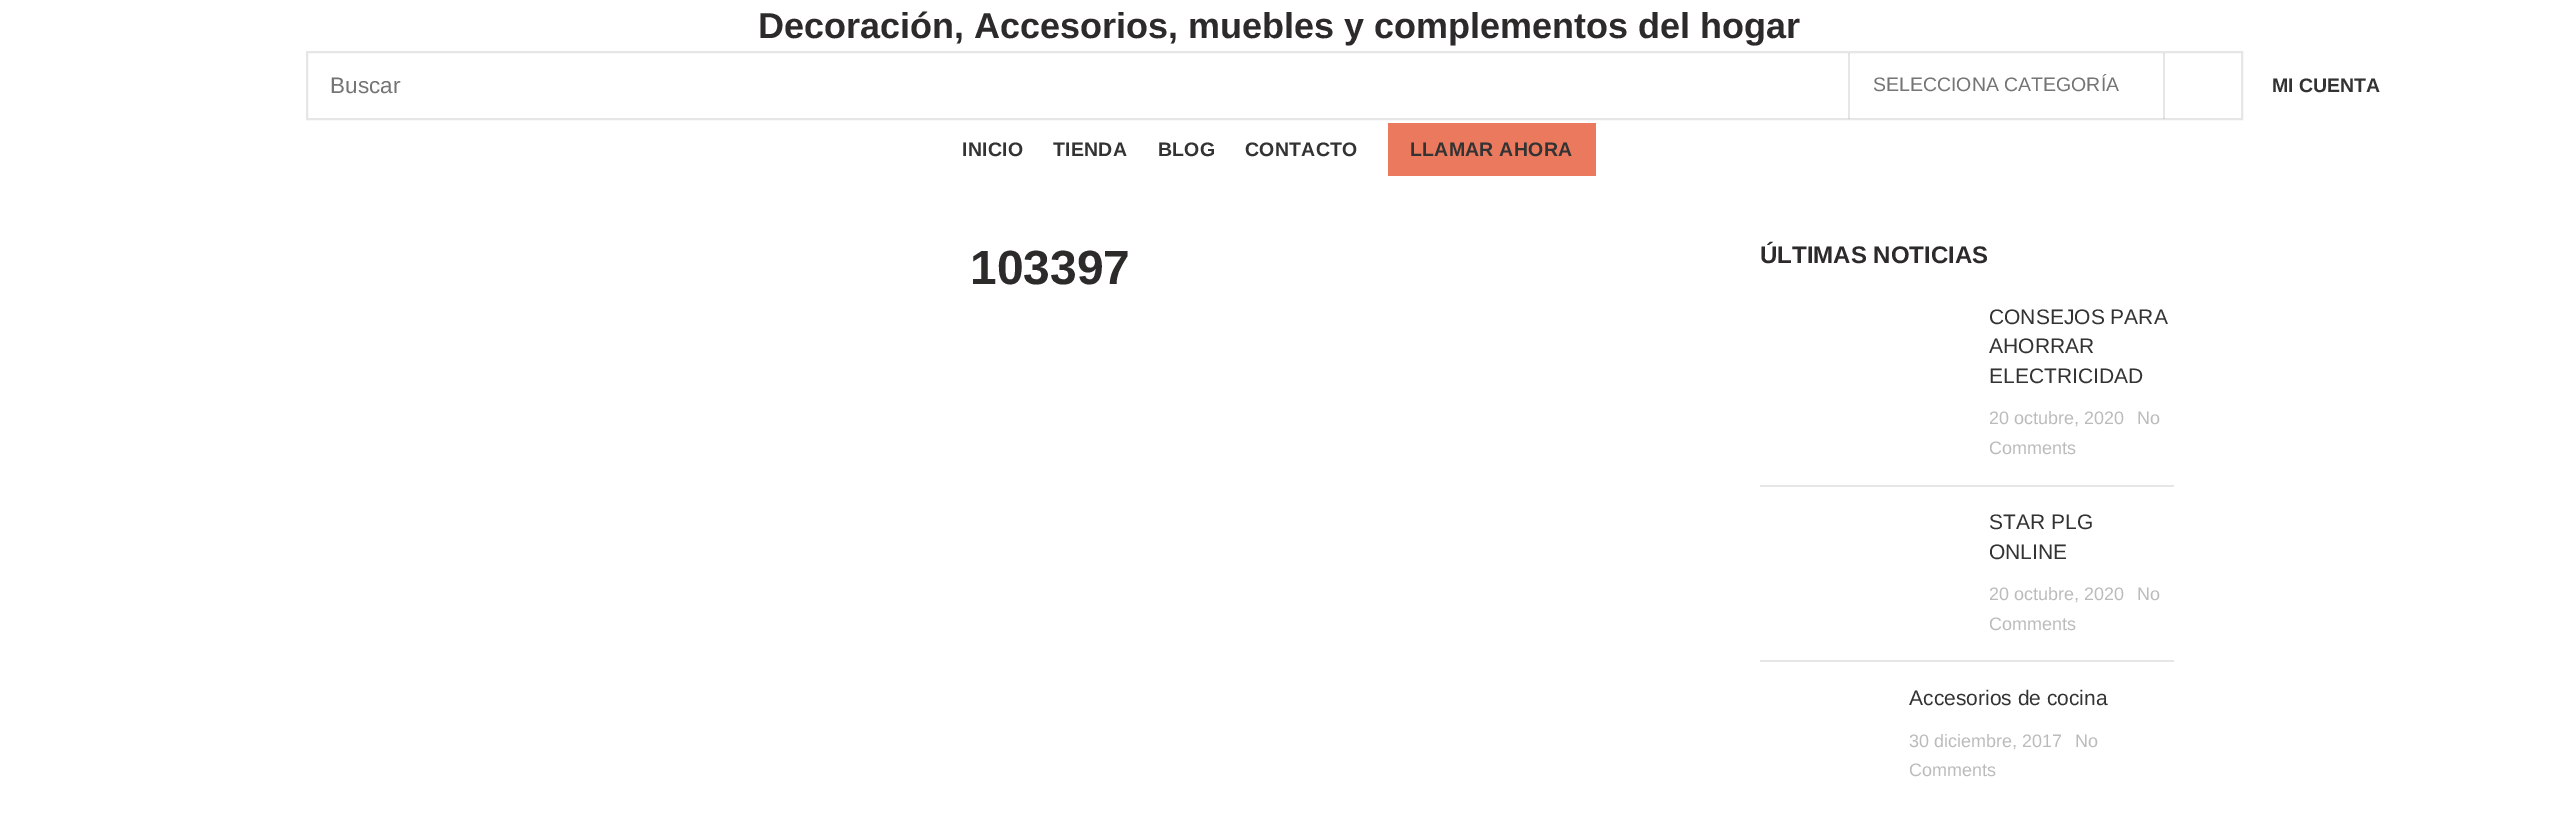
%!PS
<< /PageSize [2557 818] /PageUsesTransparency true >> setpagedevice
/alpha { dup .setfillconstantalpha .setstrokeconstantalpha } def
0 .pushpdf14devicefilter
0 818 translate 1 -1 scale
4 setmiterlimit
1 setgray
0 0 2557 818 rectfill
/LiberationSans-Bold [36 0 0 -36 0 0] selectfont
0.176 0.165 0.165 setrgbcolor
758 38 moveto (Decoración, Accesorios, muebles y complementos del hogar) show
0.902 setgray
2 setlinewidth
307 52 1935 67 rectstroke
/LiberationSans-Regular [22.5 0 0 -22.5 0 0] selectfont
0.459 setgray
330 93 moveto (Buscar) show
0.2 alpha
0.506 setgray
2163 53 2 66 rectfill
1848 53 2 66 rectfill
/LiberationSans-Regular [19.5 0 0 -19.5 0 0] selectfont
1 alpha
0.459 setgray
1873 91 moveto (SELECCIONA CATEGORÍA) show
/LiberationSans-Bold [19.5 0 0 -19.5 0 0] selectfont
0.2 setgray
2272 92 moveto (MI CUENTA) show
962 156 moveto 0.25 0 (INICIO) ashow
1053 156 moveto 0.25 0 (TIENDA) ashow
1158 156 moveto 0.25 0 (BLOG) ashow
1245 156 moveto 0.25 0 (CONTACTO) ashow
0.918 0.475 0.365 setrgbcolor
1388 123 208 53 rectfill
0.2 setgray
1410 156 moveto 0.25 0 (LLAMAR AHORA) ashow
/LiberationSans-Bold [48 0 0 -48 0 0] selectfont
0.176 0.165 0.165 setrgbcolor
970 284 moveto (103397) show
/LiberationSans-Bold [24 0 0 -24 0 0] selectfont
1760 263 moveto (ÚLTIMAS NOTICIAS) show
0.902 setgray
1760 485 414 2 rectfill
/LiberationSans-Regular [21 0 0 -21 0 0] selectfont
0.2 setgray
1989 324 moveto (CONSEJOS PARA) show
1989 353 moveto (AHORRAR) show
1989 383 moveto (ELECTRICIDAD) show
/LiberationSans-Regular [18 0 0 -18 0 0] selectfont
0.733 setgray
1989 424 moveto (20 octubre, 2020) show
2137 424 moveto (No) show
1989 454 moveto (Comments) show
0.902 setgray
1760 660 414 2 rectfill
/LiberationSans-Regular [21 0 0 -21 0 0] selectfont
0.2 setgray
1989 529 moveto (STAR PLG) show
1989 559 moveto (ONLINE) show
/LiberationSans-Regular [18 0 0 -18 0 0] selectfont
0.733 setgray
1989 600 moveto (20 octubre, 2020) show
2137 600 moveto (No) show
1989 630 moveto (Comments) show
/LiberationSans-Regular [21 0 0 -21 0 0] selectfont
0.2 setgray
1909 705 moveto (Accesorios de cocina) show
/LiberationSans-Regular [18 0 0 -18 0 0] selectfont
0.733 setgray
1909 747 moveto (30 diciembre, 2017) show
2075 747 moveto (No) show
1909 776 moveto (Comments) show
.poppdf14devicefilter showpage
